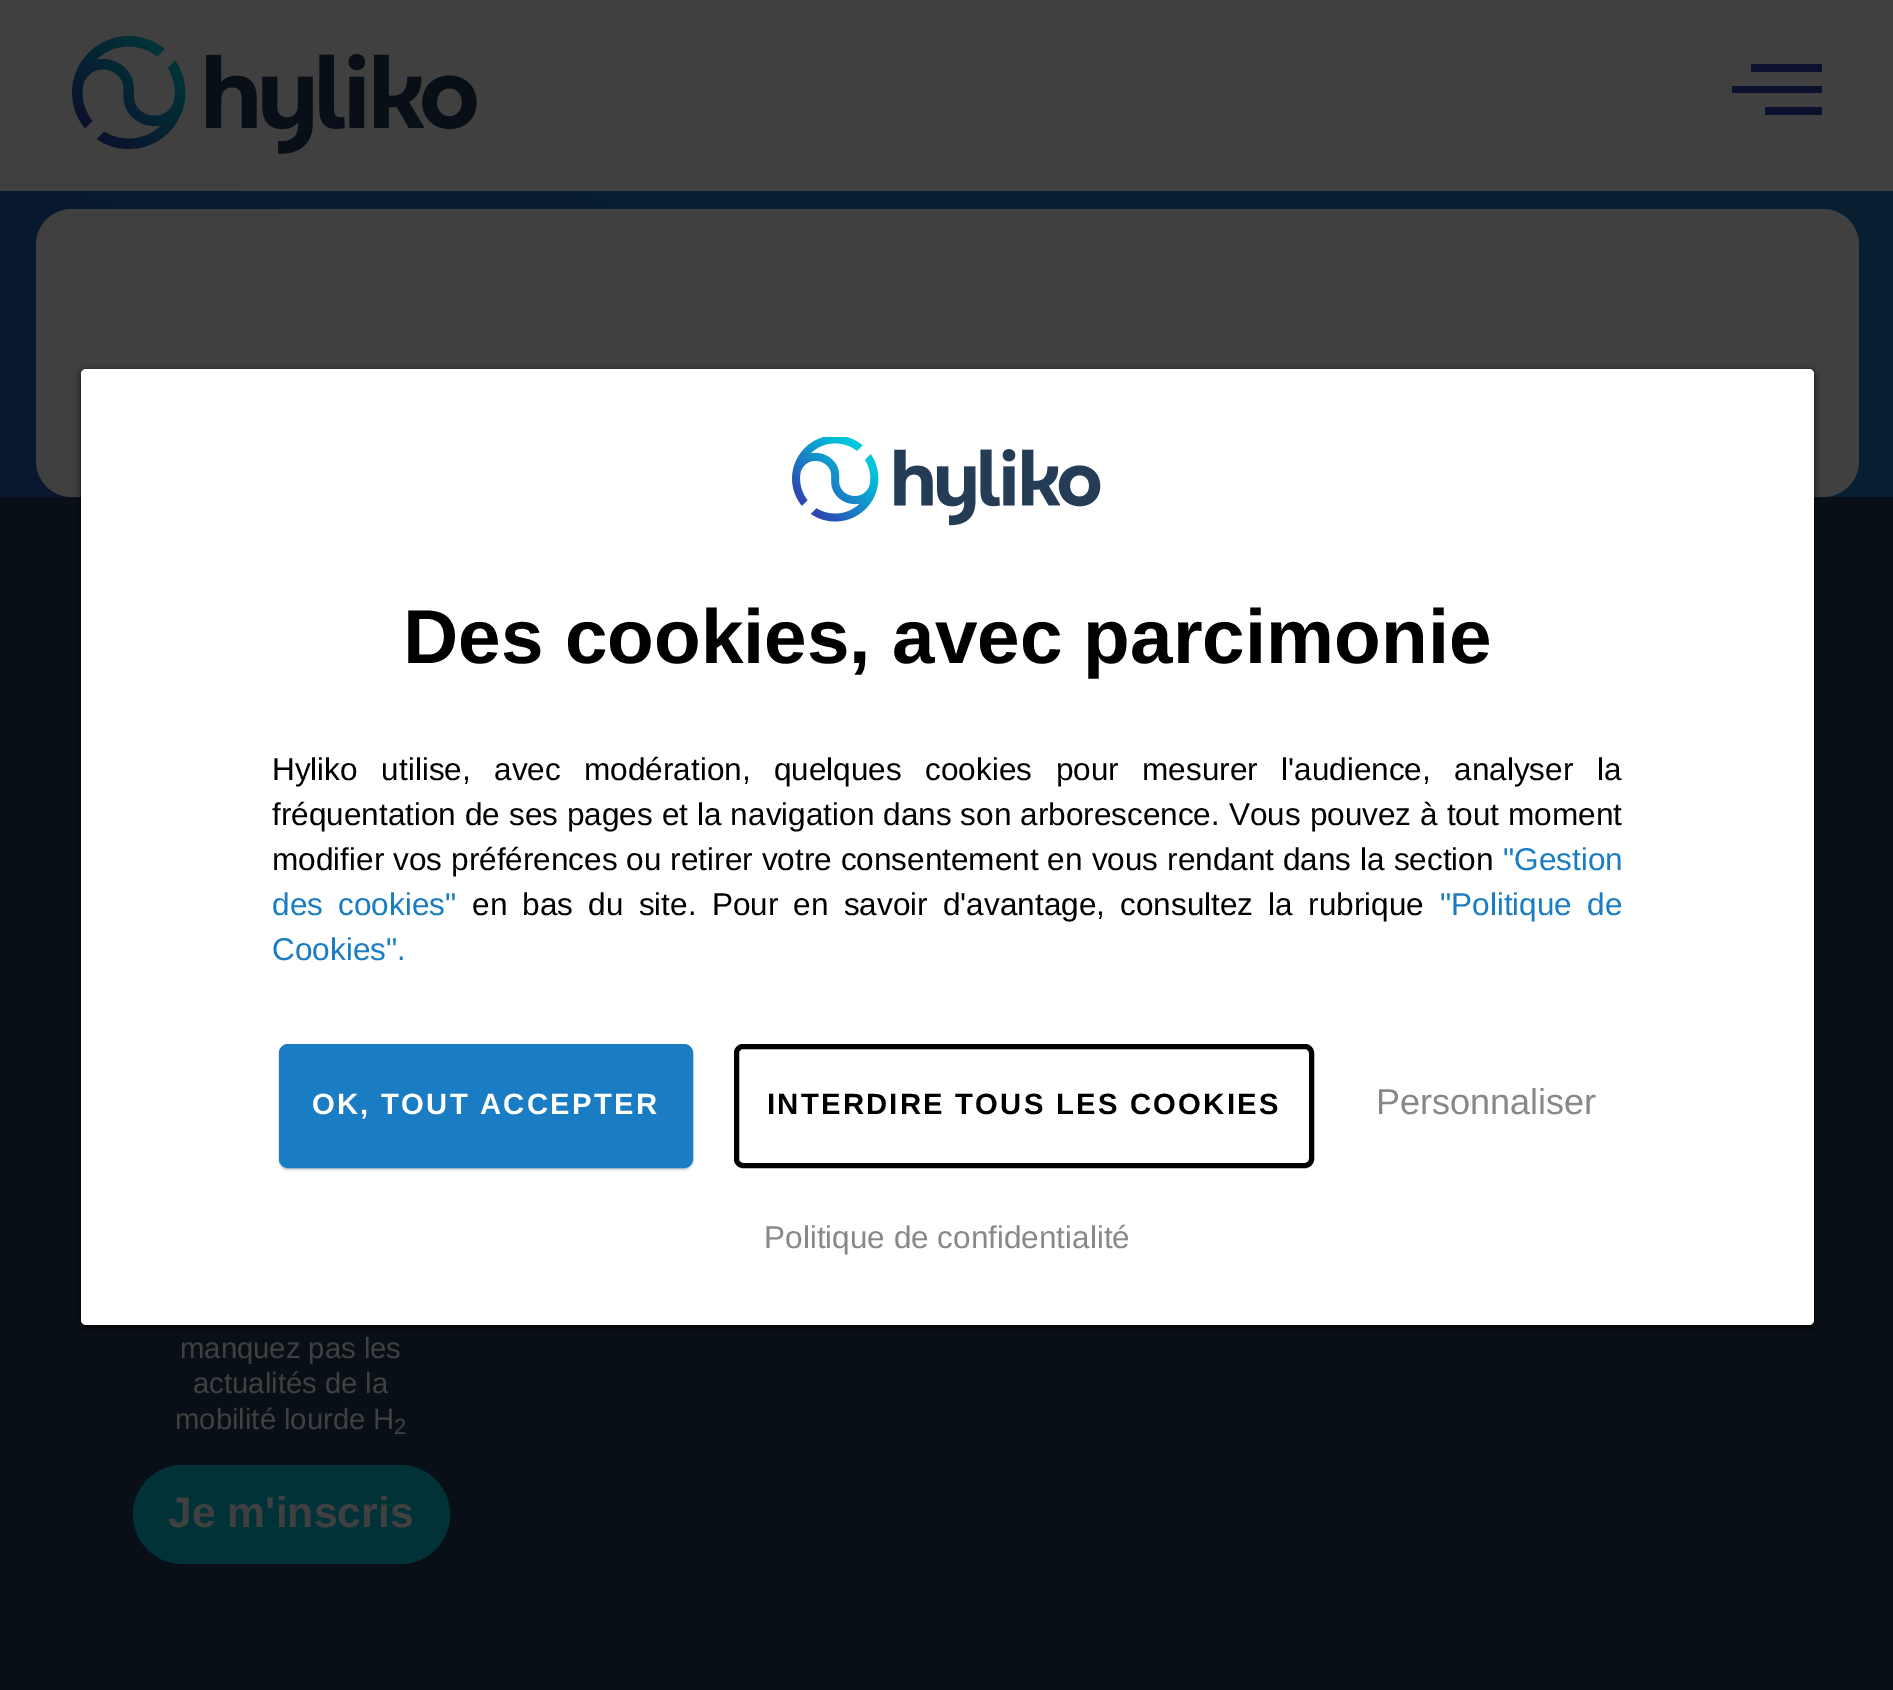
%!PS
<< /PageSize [1893 1690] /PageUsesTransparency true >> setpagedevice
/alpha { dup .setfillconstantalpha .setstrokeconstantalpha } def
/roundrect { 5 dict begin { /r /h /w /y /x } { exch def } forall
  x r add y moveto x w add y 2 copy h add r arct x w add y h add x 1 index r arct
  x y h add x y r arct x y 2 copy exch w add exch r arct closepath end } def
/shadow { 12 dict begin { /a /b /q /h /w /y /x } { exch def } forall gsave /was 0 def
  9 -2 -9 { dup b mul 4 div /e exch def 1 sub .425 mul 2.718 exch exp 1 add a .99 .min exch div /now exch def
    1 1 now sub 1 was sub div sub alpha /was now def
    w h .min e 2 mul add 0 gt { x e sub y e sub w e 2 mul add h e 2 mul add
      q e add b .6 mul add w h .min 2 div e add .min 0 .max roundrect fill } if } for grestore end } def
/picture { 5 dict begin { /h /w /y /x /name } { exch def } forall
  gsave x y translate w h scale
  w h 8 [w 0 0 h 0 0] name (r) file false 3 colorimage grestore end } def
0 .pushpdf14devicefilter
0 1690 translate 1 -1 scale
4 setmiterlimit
0.251 setgray
0 0 1893 1690 rectfill
(img1.rgb) 72 36 405 118 picture
0.047 0.071 0.176 setrgbcolor
newpath 1732 93 moveto 1822 93 lineto 1822 86 lineto 1732 86 lineto closepath 1765 115 moveto 1822 115 lineto 1822 107 lineto 1765 107 lineto closepath 1751 64 moveto 1751 72 lineto 1822 72 lineto 1822 64 lineto closepath fill
gsave newpath 0 191 moveto 1893 191 lineto 1893 497 lineto 0 497 lineto closepath clip newpath
<< /ShadingType 2 /ColorSpace /DeviceRGB /Coords [693 1171 1202 -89] /Extend [true true] /Function << /FunctionType 3 /Domain [0 1] /Functions [<< /FunctionType 2 /Domain [0 1] /C0 [0.047 0.071 0.176] /C1 [0.047 0.071 0.176] /N 1 >> << /FunctionType 2 /Domain [0 1] /C0 [0.047 0.071 0.176] /C1 [0.027 0.122 0.192] /N 1 >> << /FunctionType 2 /Domain [0 1] /C0 [0.027 0.122 0.192] /C1 [0.027 0.122 0.192] /N 1 >>] /Bounds [0.08 0.76] /Encode [0 1 0 1 0 1] >> >> shfill grestore
0.251 setgray
36 209 1823 288 36 roundrect fill
0.035 0.059 0.086 setrgbcolor
0 497 1893 1193 rectfill
0 setgray
81 371 1733 957 5 3.5 0.75 shadow
1 setgray
81 369 1733 956 5 roundrect fill
(img2.rgb) 792 437 309 89 picture
/LiberationSans-Bold [76.5 0 0 -76.5 0 0] selectfont
0 setgray
403 663 moveto (Des cookies, avec parcimonie) show
/LiberationSans-Regular [31.5 0 0 -31.5 0 0] selectfont
272 780 moveto 14.75 0 32 (Hyliko utilise, avec modération, quelques cookies pour mesurer l'audience, analyser la) widthshow
272 825 moveto 0.25 0 32 (fréquentation de ses pages et la navigation dans son arborescence. Vous pouvez à tout moment) widthshow
272 870 moveto 0.25 0 32 (modifier vos préférences ou retirer votre consentement en vous rendant dans la section) widthshow
0.102 0.486 0.765 setrgbcolor
1503 870 moveto ("Gestion) show
272 915 moveto 6.5 0 32 (des cookies") widthshow
0 setgray
472 915 moveto 6.5 0 32 (en bas du site. Pour en savoir d'avantage, consultez la rubrique) widthshow
0.102 0.486 0.765 setrgbcolor
1440 915 moveto 6.5 0 32 ("Politique de) widthshow
272 960 moveto (Cookies".) show
0 setgray
279 1046 414 124 9 1 0.2 shadow
0.102 0.486 0.765 setrgbcolor
281.5 1046.5 409 119 6.5 roundrect gsave fill grestore
5 setlinewidth
stroke
/LiberationSans-Bold [29.25 0 0 -29.25 0 0] selectfont
1 setgray
312 1114 moveto 2.25 0 (OK, TOUT ACCEPTER) ashow
0 setgray
736.5 1046.5 575 119 6.5 roundrect stroke
767 1114 moveto 2.25 0 (INTERDIRE TOUS LES COOKIES) ashow
/LiberationSans-Regular [36 0 0 -36 0 0] selectfont
0.533 setgray
1376 1114 moveto (Personnaliser) show
/LiberationSans-Regular [31.5 0 0 -31.5 0 0] selectfont
764 1248 moveto (Politique de confidentialité) show
/LiberationSans-Regular [29.25 0 0 -29.25 0 0] selectfont
0.251 setgray
180 1358 moveto (manquez pas les) show
193 1393 moveto (actualités de la) show
175 1429 moveto (mobilité lourde H) show
/LiberationSans-Regular [22 0 0 -22 0 0] selectfont
394 1434 moveto (2) show
0 0.196 0.216 setrgbcolor
133 1465 317 99 49.5 roundrect fill
/LiberationSans-Bold [42.75 0 0 -42.75 0 0] selectfont
0.251 setgray
168 1527 moveto (Je m'inscris) show
.poppdf14devicefilter showpage
